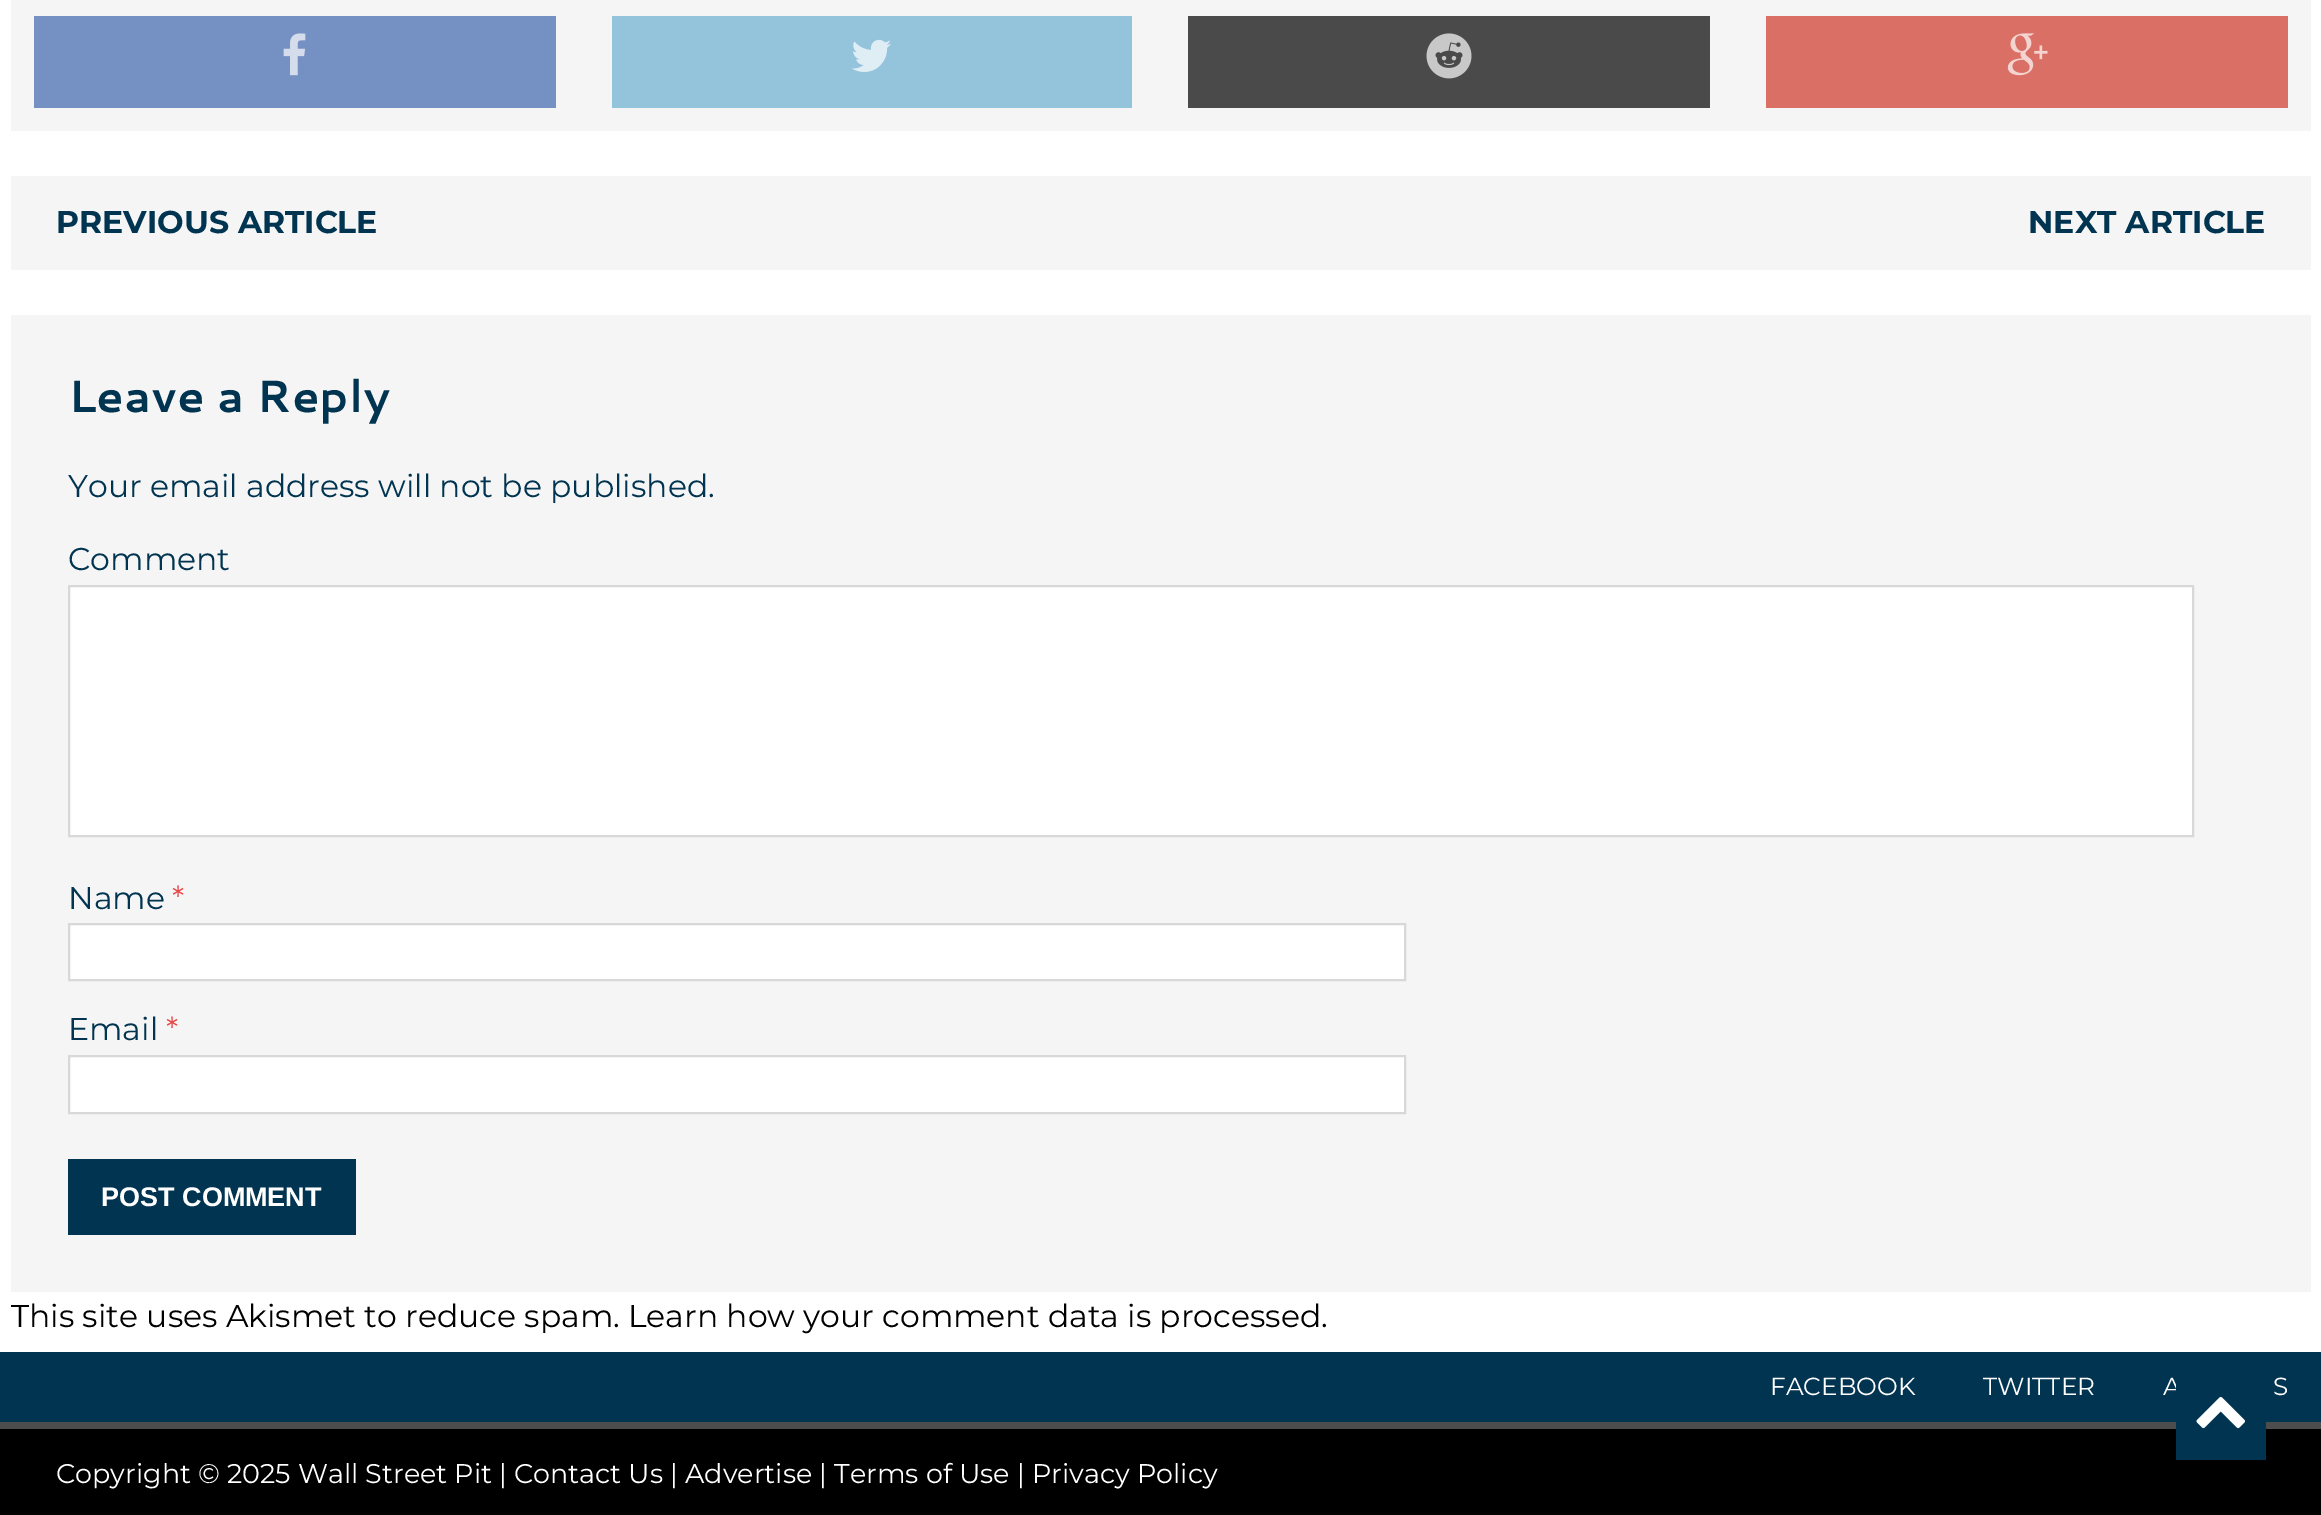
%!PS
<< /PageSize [2321 1515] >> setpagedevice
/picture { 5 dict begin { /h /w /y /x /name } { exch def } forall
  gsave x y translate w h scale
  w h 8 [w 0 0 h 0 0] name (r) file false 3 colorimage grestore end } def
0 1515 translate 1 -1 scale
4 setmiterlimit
1 setgray
0 0 2321 1515 rectfill
0.961 setgray
11 0 2300 131 rectfill
0.459 0.565 0.765 setrgbcolor
34 16 522 92 rectfill
(img1.rgb) 283 33 23 43 picture
0.58 0.765 0.863 setrgbcolor
612 16 520 92 rectfill
(img2.rgb) 852 39 39 33 picture
0.29 setgray
1188 16 522 92 rectfill
(img3.rgb) 1426 33 46 46 picture
0.851 0.435 0.396 setrgbcolor
1766 16 522 92 rectfill
(img4.rgb) 2007 33 41 43 picture
0.961 setgray
11 176 2300 94 rectfill
/Montserrat-Bold [31.5 0 0 -31.5 0 0] selectfont
0.004 0.204 0.314 setrgbcolor
56 233 moveto (PREVIOUS ARTICLE) show
2028 233 moveto (NEXT ARTICLE) show
0.961 setgray
11 315 2300 977 rectfill
/Cantarell-Bold [45 0 0 -45 0 0] selectfont
0.004 0.204 0.314 setrgbcolor
68 412 moveto (Leave a Reply) show
/Montserrat-Regular [31.5 0 0 -31.5 0 0] selectfont
68 497 moveto (Your email address will not be published.) show
68 570 moveto (Comment) show
1 setgray
newpath 69 586 moveto 2193 586 lineto 2193 836 lineto 69 836 lineto closepath gsave fill grestore
0.843 0.847 0.847 setrgbcolor
2 setlinewidth
stroke
0.004 0.204 0.314 setrgbcolor
68 909 moveto (Name) show
0.902 0.286 0.275 setrgbcolor
172 909 moveto (*) show
1 setgray
newpath 69 924 moveto 1405 924 lineto 1405 980 lineto 69 980 lineto closepath gsave fill grestore
0.843 0.847 0.847 setrgbcolor
stroke
0.004 0.204 0.314 setrgbcolor
68 1040 moveto (Email) show
0.902 0.286 0.275 setrgbcolor
166 1040 moveto (*) show
1 setgray
newpath 69 1056 moveto 1405 1056 lineto 1405 1113 lineto 69 1113 lineto closepath gsave fill grestore
0.843 0.847 0.847 setrgbcolor
stroke
0.004 0.204 0.314 setrgbcolor
68 1159 288 76 rectfill
/LiberationSans-Bold [27 0 0 -27 0 0] selectfont
1 setgray
101 1206 moveto (POST COMMENT) show
/Montserrat-Regular [31.5 0 0 -31.5 0 0] selectfont
0 setgray
11 1327 moveto (This site uses Akismet to reduce spam. Learn how your comment data is processed.) show
0.004 0.204 0.314 setrgbcolor
0 1352 2321 70 rectfill
/Montserrat-Regular [24.75 0 0 -24.75 0 0] selectfont
1 setgray
2163 1395 moveto (A) show
0 setgray
0 1429 2321 86 rectfill
0.302 setgray
0 1422 2321 7 rectfill
0.004 0.204 0.314 setrgbcolor
2176 1385 90 75 rectfill
(img5.rgb) 2196 1396 49 33 picture
1 setgray
1770 1395 moveto (FACEBOOK) show
1983 1395 moveto (TWITTER) show
2273 1395 moveto (S) show
/Montserrat-Regular [27 0 0 -27 0 0] selectfont
56 1483 moveto (Copyright © 2025 Wall Street Pit | Contact Us | Advertise | Terms of Use | Privacy Policy) show
showpage
